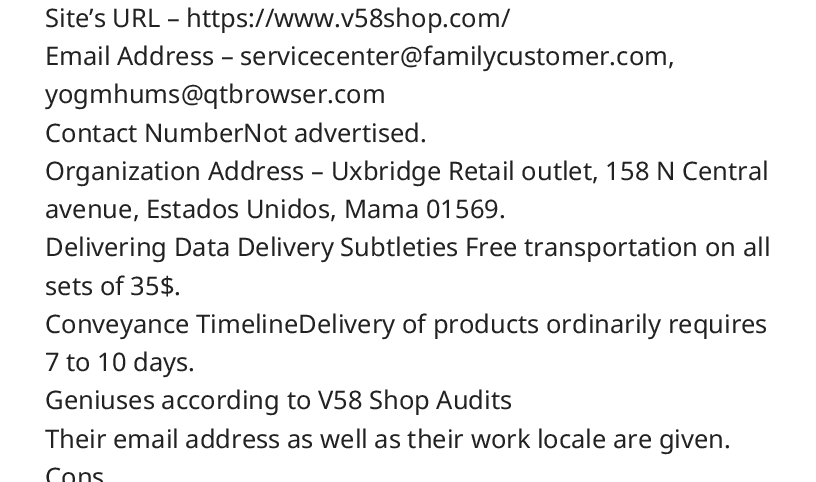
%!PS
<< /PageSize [816 482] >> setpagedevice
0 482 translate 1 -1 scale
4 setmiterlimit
1 setgray
0 0 816 482 rectfill
/NotoSans-Regular [25.5 0 0 -25.5 0 0] selectfont
0.133 setgray
45 27 moveto (Site’s URL – https://www.v58shop.com/) show
45 65 moveto (Email Address – servicecenter@familycustomer.com,) show
45 103 moveto (yogmhums@qtbrowser.com) show
45 142 moveto (Contact NumberNot advertised.) show
45 180 moveto (Organization Address – Uxbridge Retail outlet, 158 N Central) show
45 218 moveto (avenue, Estados Unidos, Mama 01569.) show
45 256 moveto (Delivering Data Delivery Subtleties Free transportation on all) show
45 295 moveto (sets of 35$.) show
45 333 moveto (Conveyance TimelineDelivery of products ordinarily requires) show
45 371 moveto (7 to 10 days.) show
45 409 moveto (Geniuses according to V58 Shop Audits) show
45 448 moveto (Their email address as well as their work locale are given.) show
45 486 moveto (Cons) show
showpage
